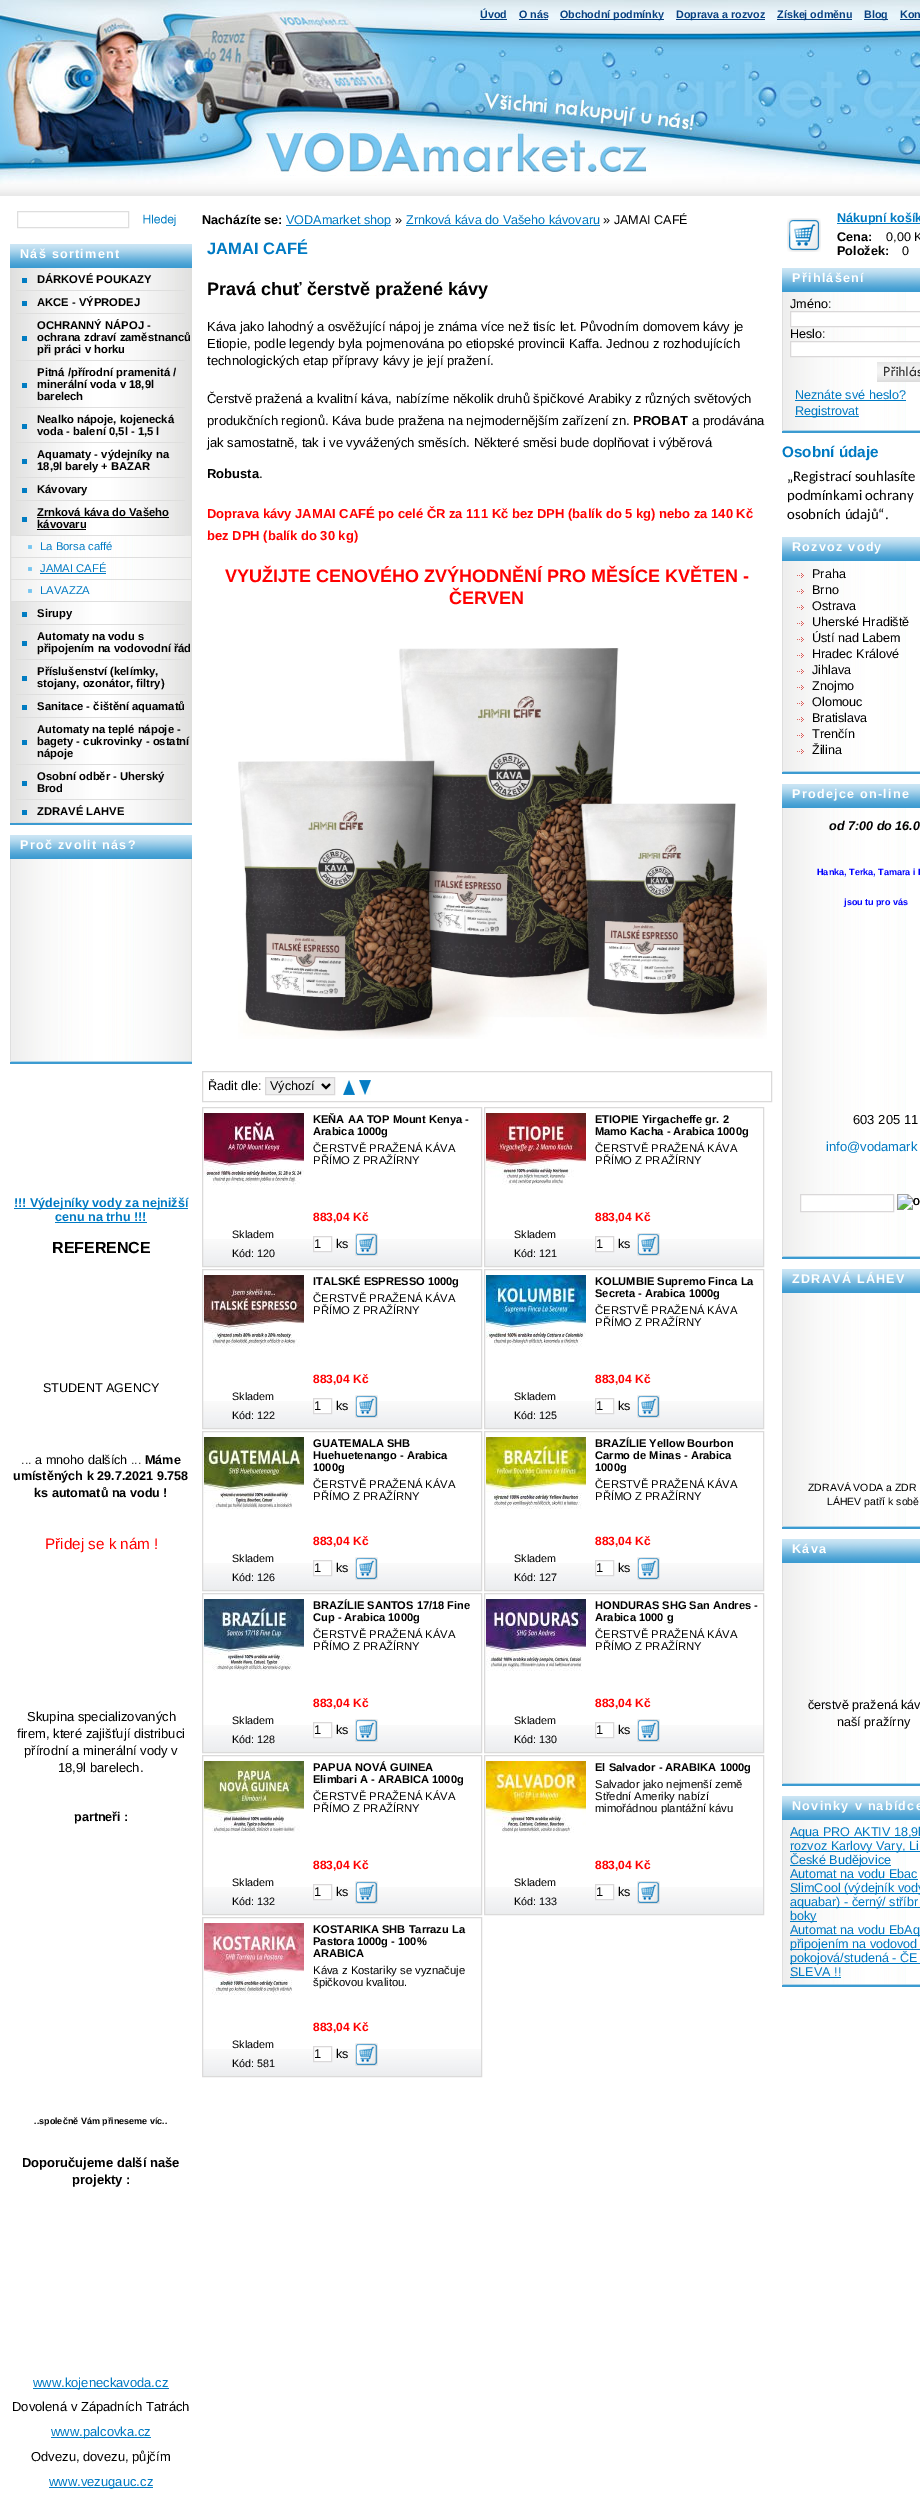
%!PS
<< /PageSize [920 2508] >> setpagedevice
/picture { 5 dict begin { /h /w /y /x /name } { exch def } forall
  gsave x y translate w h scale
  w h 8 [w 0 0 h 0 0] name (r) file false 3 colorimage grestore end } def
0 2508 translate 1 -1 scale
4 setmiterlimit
1 setgray
0 0 920 2508 rectfill
(img1.rgb) 0 0 920 196 picture
/LiberationSans-Bold [10.75 0 0 -10.75 0 0] selectfont
0.027 0.251 0.502 setrgbcolor
480 18 moveto (Úvod) show
480 19 27 1 rectfill
519 18 moveto (O nás) show
519 19 29 1 rectfill
560 19 104 1 rectfill
560 18 moveto (Obchodní podmínky) show
676 19 89 1 rectfill
676 18 moveto (Doprava a rozvoz) show
777 19 75 1 rectfill
777 18 moveto (Získej odměnu) show
864 19 24 1 rectfill
864 18 moveto (Blog) show
900 18 moveto (Kon) show
900 19 20 1 rectfill
(img2.rgb) 266 131 385 44 picture
0.871 setgray
17.5 211.5 111 16 rectstroke
(img3.rgb) 143 214 33 13 picture
0.235 0.608 0.82 setrgbcolor
10 823 182 2 rectfill
(img4.rgb) 10 244 182 24 picture
/LiberationSans-Bold [12.6 0 0 -12.6 0 0] selectfont
1 setgray
20 258 moveto 1.25 0 (Náš sortiment) ashow
(img5.rgb) 10 268 182 555 picture
(img6.rgb) 16 290 169 1 picture
(img7.rgb) 22 278 5 5 picture
/LiberationSans-Bold [11.25 0 0 -11.25 0 0] selectfont
0 setgray
37 283 moveto (DÁRKOVÉ POUKAZY) show
(img6.rgb) 16 313 169 1 picture
(img7.rgb) 22 301 5 5 picture
37 306 moveto (AKCE - VÝPRODEJ) show
(img6.rgb) 16 360 169 1 picture
(img7.rgb) 22 336 5 5 picture
37 329 moveto (OCHRANNÝ NÁPOJ -) show
37 341 moveto (ochrana zdraví zaměstnanců) show
37 353 moveto (při práci v horku) show
(img6.rgb) 16 407 169 1 picture
(img7.rgb) 22 383 5 5 picture
37 376 moveto (Pitná /přírodní pramenitá /) show
37 388 moveto (minerální voda v 18,9l) show
37 400 moveto (barelech) show
(img6.rgb) 16 442 169 1 picture
(img7.rgb) 22 424 5 5 picture
37 423 moveto (Nealko nápoje, kojenecká) show
37 435 moveto (voda - balení 0,5l - 1,5 l) show
(img6.rgb) 16 477 169 1 picture
(img7.rgb) 22 459 5 5 picture
37 458 moveto (Aquamaty - výdejníky na) show
37 470 moveto (18,9l barely + BAZAR) show
(img6.rgb) 16 500 169 1 picture
(img7.rgb) 22 488 5 5 picture
37 493 moveto (Kávovary) show
(img6.rgb) 16 535 169 1 picture
0.004 0.486 0.761 setrgbcolor
22 517 5 5 rectfill
0 setgray
37 516 moveto (Zrnková káva do Vašeho) show
37 517 132 1 rectfill
37 528 moveto (kávovaru) show
37 529 49 1 rectfill
(img8.rgb) 11 536 180 21 picture
(img9.rgb) 11 557 180 1 picture
(img10.rgb) 28 545 4 4 picture
/LiberationSans-Regular [11.25 0 0 -11.25 0 0] selectfont
0 0.478 0.765 setrgbcolor
40 550 moveto (La Borsa caffé) show
(img8.rgb) 11 558 180 21 picture
(img9.rgb) 11 579 180 1 picture
(img10.rgb) 28 567 4 4 picture
40 572 moveto (JAMAI CAFÉ) show
0.004 0.478 0.757 setrgbcolor
40 573 66 1 rectfill
(img8.rgb) 11 580 180 21 picture
(img9.rgb) 11 601 180 1 picture
(img10.rgb) 28 589 4 4 picture
0 0.478 0.765 setrgbcolor
40 594 moveto (LAVAZZA) show
(img6.rgb) 16 624 169 1 picture
(img7.rgb) 22 612 5 5 picture
/LiberationSans-Bold [11.25 0 0 -11.25 0 0] selectfont
0 setgray
37 617 moveto (Sirupy) show
(img6.rgb) 16 659 169 1 picture
(img7.rgb) 22 641 5 5 picture
37 640 moveto (Automaty na vodu s) show
37 652 moveto (připojením na vodovodní řád) show
(img6.rgb) 16 694 169 1 picture
(img7.rgb) 22 676 5 5 picture
37 675 moveto (Příslušenství \(kelímky,) show
37 687 moveto (stojany, ozonátor, filtry\)) show
(img6.rgb) 16 717 169 1 picture
(img7.rgb) 22 705 5 5 picture
37 710 moveto (Sanitace - čištění aquamatů) show
(img6.rgb) 16 764 169 1 picture
(img7.rgb) 22 740 5 5 picture
37 733 moveto (Automaty na teplé nápoje -) show
37 745 moveto (bagety - cukrovinky - ostatní) show
37 757 moveto (nápoje) show
(img6.rgb) 16 799 169 1 picture
(img7.rgb) 22 781 5 5 picture
37 780 moveto (Osobní odběr - Uherský) show
37 792 moveto (Brod) show
(img6.rgb) 16 822 169 1 picture
(img7.rgb) 22 810 5 5 picture
37 815 moveto (ZDRAVÉ LAHVE) show
0.235 0.608 0.82 setrgbcolor
10 1062 182 2 rectfill
(img4.rgb) 10 835 182 24 picture
/LiberationSans-Bold [12.6 0 0 -12.6 0 0] selectfont
1 setgray
20 849 moveto 1.25 0 (Proč zvolit nás?) ashow
(img11.rgb) 11 859 180 202 picture
0.871 setgray
191 859 1 203 rectfill
0.678 0.827 0.91 setrgbcolor
10 1061 182 1 rectfill
0.871 setgray
10 859 1 203 rectfill
0 0.478 0.765 setrgbcolor
14 1208 174 1 rectfill
14 1207 moveto (!!! Výdejníky vody za nejnižší) show
55 1221 moveto (cenu na trhu !!!) show
55 1222 92 1 rectfill
/LiberationSans-Bold [16 0 0 -16 0 0] selectfont
0 setgray
52 1253 moveto (REFERENCE) show
/LiberationSans-Regular [12.6 0 0 -12.6 0 0] selectfont
43 1392 moveto (STUDENT AGENCY) show
21 1464 moveto (... a mnoho dalších ...) show
/LiberationSans-Bold [12.6 0 0 -12.6 0 0] selectfont
145 1464 moveto (Máme) show
13 1480 moveto (umístěných k 29.7.2021 9.758) show
34 1497 moveto (ks automatů na vodu !) show
/LiberationSans-Regular [15.25 0 0 -15.25 0 0] selectfont
1 0 0 setrgbcolor
45 1549 moveto (Přidej se k nám !) show
/LiberationSans-Regular [13 0 0 -13 0 0] selectfont
0 setgray
27 1721 moveto (Skupina specializovaných) show
17 1738 moveto (firem, které zajišťují distribuci) show
24 1755 moveto (přírodní a minerální vody v) show
58 1772 moveto (18,9l barelech.) show
/LiberationSans-Bold [12.6 0 0 -12.6 0 0] selectfont
74 1821 moveto (partneři :) show
/LiberationSans-Bold [9 0 0 -9 0 0] selectfont
34 2124 moveto (..společně Vám přineseme víc..) show
/LiberationSans-Bold [13 0 0 -13 0 0] selectfont
22 2167 moveto (Doporučujeme další naše) show
72 2184 moveto (projekty :) show
0 0.478 0.765 setrgbcolor
33 2388 136 1 rectfill
/LiberationSans-Regular [13 0 0 -13 0 0] selectfont
33 2387 moveto (www.kojeneckavoda.cz) show
0 setgray
12 2411 moveto (Dovolená v Západních Tatrách) show
0 0.478 0.765 setrgbcolor
51 2437 100 1 rectfill
51 2436 moveto (www.palcovka.cz) show
0 setgray
31 2461 moveto (Odvezu, dovezu, půjčím) show
0 0.478 0.765 setrgbcolor
49 2487 104 1 rectfill
49 2486 moveto (www.vezugauc.cz) show
/LiberationSans-Bold [12.6 0 0 -12.6 0 0] selectfont
0 setgray
202 224 moveto (Nacházíte se:) show
0 0.478 0.765 setrgbcolor
286 225 105 1 rectfill
/LiberationSans-Regular [12.6 0 0 -12.6 0 0] selectfont
286 224 moveto (VODAmarket shop) show
0 setgray
395 224 moveto (») show
0 0.478 0.765 setrgbcolor
406 224 moveto (Zrnková káva do Vašeho kávovaru) show
406 225 194 1 rectfill
0 setgray
603 224 moveto (» JAMAI CAFÉ) show
/LiberationSans-Bold [16.5 0 0 -16.5 0 0] selectfont
0 0.478 0.765 setrgbcolor
207 254 moveto (JAMAI CAFÉ) show
/LiberationSans-Bold [18 0 0 -18 0 0] selectfont
0 setgray
207 295 moveto (Pravá chuť čerstvě pražené kávy) show
/LiberationSans-Regular [13 0 0 -13 0 0] selectfont
207 331 moveto (Káva jako lahodný a osvěžující nápoj je známa více než tisíc let. Původním domovem kávy je) show
207 348 moveto (Etiopie, podle legendy byla pojmenována po etiopské provincii Kaffa. Jednou z rozhodujících) show
207 365 moveto (technologických etap přípravy kávy je její pražení.) show
207 403 moveto (Čerstvě pražená a kvalitní káva, nabízíme několik druhů špičkové Arabiky z různých světových) show
207 425 moveto (produkčních regionů. Káva bude pražena na nejmodernějším zařízení zn.) show
/LiberationSans-Bold [13 0 0 -13 0 0] selectfont
633 425 moveto (PROBAT) show
/LiberationSans-Regular [13 0 0 -13 0 0] selectfont
692 425 moveto (a prodávána) show
207 447 moveto (jak samostatně, tak i ve vyvážených směsích. Některé směsi bude doplňovat i výběrová) show
/LiberationSans-Bold [13 0 0 -13 0 0] selectfont
207 478 moveto (Robusta) show
/LiberationSans-Regular [13 0 0 -13 0 0] selectfont
259 478 moveto (.) show
/LiberationSans-Bold [13 0 0 -13 0 0] selectfont
1 0 0 setrgbcolor
207 518 moveto (Doprava kávy JAMAI CAFÉ po celé ČR za 111 Kč bez DPH \(balík do 5 kg\) nebo za 140 Kč) show
207 540 moveto (bez DPH \(balík do 30 kg\)) show
/LiberationSans-Bold [18 0 0 -18 0 0] selectfont
225 582 moveto (VYUŽIJTE CENOVÉHO ZVÝHODNĚNÍ PRO MĚSÍCE KVĚTEN -) show
449 604 moveto (ČERVEN) show
(img12.rgb) 238 648 529 391 picture
0.859 0.855 0.855 setrgbcolor
202.5 1071.5 569 30 rectstroke
/LiberationSans-Regular [12.6 0 0 -12.6 0 0] selectfont
0 setgray
208 1090 moveto (Řadit dle:) show
0.937 setgray
newpath 265.5 1077.5 moveto 334.5 1077.5 lineto 334.5 1094.5 lineto 265.5 1094.5 lineto closepath gsave fill grestore
0.855 0.847 0.851 setrgbcolor
stroke
0 setgray
2 setlinewidth
newpath 322 1084 moveto 326 1088 lineto 330 1084 lineto stroke
270 1090 moveto (Výchozí) show
(img13.rgb) 343 1080 12 15 picture
(img14.rgb) 359 1080 12 15 picture
(img15.rgb) 203 1239 278 27 picture
0.859 0.855 0.855 setrgbcolor
1 setlinewidth
202.5 1107.5 279 159 rectstroke
(img16.rgb) 204 1113 100 72 picture
/LiberationSans-Bold [11.1 0 0 -11.1 0 0] selectfont
0 setgray
313 1123 moveto (KEŇA AA TOP Mount Kenya -) show
313 1135 moveto (Arabica 1000g) show
/LiberationSans-Regular [11.25 0 0 -11.25 0 0] selectfont
313 1152 moveto (ČERSTVĚ PRAŽENÁ KÁVA) show
313 1164 moveto (PŘÍMO Z PRAŽÍRNY) show
/LiberationSans-Bold [12 0 0 -12 0 0] selectfont
1 0 0 setrgbcolor
313 1221 moveto (883,04 Kč) show
/LiberationSans-Regular [10.75 0 0 -10.75 0 0] selectfont
0 setgray
232 1238 moveto (Skladem) show
1 setgray
314 1239 17 12 rectfill
0.855 0.847 0.851 setrgbcolor
313.5 1236.5 18 15 rectstroke
/LiberationSans-Regular [12.6 0 0 -12.6 0 0] selectfont
0 setgray
314 1248 moveto (1) show
336 1248 moveto (ks) show
(img17.rgb) 355 1233 23 23 picture
/LiberationSans-Regular [10.75 0 0 -10.75 0 0] selectfont
232 1257 moveto (Kód: 120) show
(img15.rgb) 485 1239 278 27 picture
0.859 0.855 0.855 setrgbcolor
484.5 1107.5 279 159 rectstroke
(img18.rgb) 486 1113 100 72 picture
/LiberationSans-Bold [11.1 0 0 -11.1 0 0] selectfont
0 setgray
595 1123 moveto (ETIOPIE Yirgacheffe gr. 2) show
595 1135 moveto (Mamo Kacha - Arabica 1000g) show
/LiberationSans-Regular [11.25 0 0 -11.25 0 0] selectfont
595 1152 moveto (ČERSTVĚ PRAŽENÁ KÁVA) show
595 1164 moveto (PŘÍMO Z PRAŽÍRNY) show
/LiberationSans-Bold [12 0 0 -12 0 0] selectfont
1 0 0 setrgbcolor
595 1221 moveto (883,04 Kč) show
/LiberationSans-Regular [10.75 0 0 -10.75 0 0] selectfont
0 setgray
514 1238 moveto (Skladem) show
1 setgray
596 1239 17 12 rectfill
0.855 0.847 0.851 setrgbcolor
595.5 1236.5 18 15 rectstroke
/LiberationSans-Regular [12.6 0 0 -12.6 0 0] selectfont
0 setgray
596 1248 moveto (1) show
618 1248 moveto (ks) show
(img17.rgb) 637 1233 23 23 picture
/LiberationSans-Regular [10.75 0 0 -10.75 0 0] selectfont
514 1257 moveto (Kód: 121) show
(img15.rgb) 203 1401 278 27 picture
0.859 0.855 0.855 setrgbcolor
202.5 1269.5 279 159 rectstroke
(img19.rgb) 204 1275 100 72 picture
/LiberationSans-Bold [11.1 0 0 -11.1 0 0] selectfont
0 setgray
313 1285 moveto (ITALSKÉ ESPRESSO 1000g) show
/LiberationSans-Regular [11.25 0 0 -11.25 0 0] selectfont
313 1302 moveto (ČERSTVĚ PRAŽENÁ KÁVA) show
313 1314 moveto (PŘÍMO Z PRAŽÍRNY) show
/LiberationSans-Bold [12 0 0 -12 0 0] selectfont
1 0 0 setrgbcolor
313 1383 moveto (883,04 Kč) show
/LiberationSans-Regular [10.75 0 0 -10.75 0 0] selectfont
0 setgray
232 1400 moveto (Skladem) show
1 setgray
314 1401 17 12 rectfill
0.855 0.847 0.851 setrgbcolor
313.5 1398.5 18 15 rectstroke
/LiberationSans-Regular [12.6 0 0 -12.6 0 0] selectfont
0 setgray
314 1410 moveto (1) show
336 1410 moveto (ks) show
(img17.rgb) 355 1395 23 23 picture
/LiberationSans-Regular [10.75 0 0 -10.75 0 0] selectfont
232 1419 moveto (Kód: 122) show
(img15.rgb) 485 1401 278 27 picture
0.859 0.855 0.855 setrgbcolor
484.5 1269.5 279 159 rectstroke
(img20.rgb) 486 1275 100 72 picture
/LiberationSans-Bold [11.1 0 0 -11.1 0 0] selectfont
0 setgray
595 1285 moveto (KOLUMBIE Supremo Finca La) show
595 1297 moveto (Secreta - Arabica 1000g) show
/LiberationSans-Regular [11.25 0 0 -11.25 0 0] selectfont
595 1314 moveto (ČERSTVĚ PRAŽENÁ KÁVA) show
595 1326 moveto (PŘÍMO Z PRAŽÍRNY) show
/LiberationSans-Bold [12 0 0 -12 0 0] selectfont
1 0 0 setrgbcolor
595 1383 moveto (883,04 Kč) show
/LiberationSans-Regular [10.75 0 0 -10.75 0 0] selectfont
0 setgray
514 1400 moveto (Skladem) show
1 setgray
596 1401 17 12 rectfill
0.855 0.847 0.851 setrgbcolor
595.5 1398.5 18 15 rectstroke
/LiberationSans-Regular [12.6 0 0 -12.6 0 0] selectfont
0 setgray
596 1410 moveto (1) show
618 1410 moveto (ks) show
(img17.rgb) 637 1395 23 23 picture
/LiberationSans-Regular [10.75 0 0 -10.75 0 0] selectfont
514 1419 moveto (Kód: 125) show
(img15.rgb) 203 1563 278 27 picture
0.859 0.855 0.855 setrgbcolor
202.5 1431.5 279 159 rectstroke
(img21.rgb) 204 1437 100 72 picture
/LiberationSans-Bold [11.1 0 0 -11.1 0 0] selectfont
0 setgray
313 1447 moveto (GUATEMALA SHB) show
313 1459 moveto (Huehuetenango - Arabica) show
313 1471 moveto (1000g) show
/LiberationSans-Regular [11.25 0 0 -11.25 0 0] selectfont
313 1488 moveto (ČERSTVĚ PRAŽENÁ KÁVA) show
313 1500 moveto (PŘÍMO Z PRAŽÍRNY) show
/LiberationSans-Bold [12 0 0 -12 0 0] selectfont
1 0 0 setrgbcolor
313 1545 moveto (883,04 Kč) show
/LiberationSans-Regular [10.75 0 0 -10.75 0 0] selectfont
0 setgray
232 1562 moveto (Skladem) show
1 setgray
314 1563 17 12 rectfill
0.855 0.847 0.851 setrgbcolor
313.5 1560.5 18 15 rectstroke
/LiberationSans-Regular [12.6 0 0 -12.6 0 0] selectfont
0 setgray
314 1572 moveto (1) show
336 1572 moveto (ks) show
(img17.rgb) 355 1557 23 23 picture
/LiberationSans-Regular [10.75 0 0 -10.75 0 0] selectfont
232 1581 moveto (Kód: 126) show
(img15.rgb) 485 1563 278 27 picture
0.859 0.855 0.855 setrgbcolor
484.5 1431.5 279 159 rectstroke
(img22.rgb) 486 1437 100 72 picture
/LiberationSans-Bold [11.1 0 0 -11.1 0 0] selectfont
0 setgray
595 1447 moveto (BRAZÍLIE Yellow Bourbon) show
595 1459 moveto (Carmo de Minas - Arabica) show
595 1471 moveto (1000g) show
/LiberationSans-Regular [11.25 0 0 -11.25 0 0] selectfont
595 1488 moveto (ČERSTVĚ PRAŽENÁ KÁVA) show
595 1500 moveto (PŘÍMO Z PRAŽÍRNY) show
/LiberationSans-Bold [12 0 0 -12 0 0] selectfont
1 0 0 setrgbcolor
595 1545 moveto (883,04 Kč) show
/LiberationSans-Regular [10.75 0 0 -10.75 0 0] selectfont
0 setgray
514 1562 moveto (Skladem) show
1 setgray
596 1563 17 12 rectfill
0.855 0.847 0.851 setrgbcolor
595.5 1560.5 18 15 rectstroke
/LiberationSans-Regular [12.6 0 0 -12.6 0 0] selectfont
0 setgray
596 1572 moveto (1) show
618 1572 moveto (ks) show
(img17.rgb) 637 1557 23 23 picture
/LiberationSans-Regular [10.75 0 0 -10.75 0 0] selectfont
514 1581 moveto (Kód: 127) show
(img15.rgb) 203 1725 278 27 picture
0.859 0.855 0.855 setrgbcolor
202.5 1593.5 279 159 rectstroke
(img23.rgb) 204 1599 100 72 picture
/LiberationSans-Bold [11.1 0 0 -11.1 0 0] selectfont
0 setgray
313 1609 moveto (BRAZÍLIE SANTOS 17/18 Fine) show
313 1621 moveto (Cup - Arabica 1000g) show
/LiberationSans-Regular [11.25 0 0 -11.25 0 0] selectfont
313 1638 moveto (ČERSTVĚ PRAŽENÁ KÁVA) show
313 1650 moveto (PŘÍMO Z PRAŽÍRNY) show
/LiberationSans-Bold [12 0 0 -12 0 0] selectfont
1 0 0 setrgbcolor
313 1707 moveto (883,04 Kč) show
/LiberationSans-Regular [10.75 0 0 -10.75 0 0] selectfont
0 setgray
232 1724 moveto (Skladem) show
1 setgray
314 1725 17 12 rectfill
0.855 0.847 0.851 setrgbcolor
313.5 1722.5 18 15 rectstroke
/LiberationSans-Regular [12.6 0 0 -12.6 0 0] selectfont
0 setgray
314 1734 moveto (1) show
336 1734 moveto (ks) show
(img17.rgb) 355 1719 23 23 picture
/LiberationSans-Regular [10.75 0 0 -10.75 0 0] selectfont
232 1743 moveto (Kód: 128) show
(img15.rgb) 485 1725 278 27 picture
0.859 0.855 0.855 setrgbcolor
484.5 1593.5 279 159 rectstroke
(img24.rgb) 486 1599 100 72 picture
/LiberationSans-Bold [11.1 0 0 -11.1 0 0] selectfont
0 setgray
595 1609 moveto (HONDURAS SHG San Andres -) show
595 1621 moveto (Arabica 1000 g) show
/LiberationSans-Regular [11.25 0 0 -11.25 0 0] selectfont
595 1638 moveto (ČERSTVĚ PRAŽENÁ KÁVA) show
595 1650 moveto (PŘÍMO Z PRAŽÍRNY) show
/LiberationSans-Bold [12 0 0 -12 0 0] selectfont
1 0 0 setrgbcolor
595 1707 moveto (883,04 Kč) show
/LiberationSans-Regular [10.75 0 0 -10.75 0 0] selectfont
0 setgray
514 1724 moveto (Skladem) show
1 setgray
596 1725 17 12 rectfill
0.855 0.847 0.851 setrgbcolor
595.5 1722.5 18 15 rectstroke
/LiberationSans-Regular [12.6 0 0 -12.6 0 0] selectfont
0 setgray
596 1734 moveto (1) show
618 1734 moveto (ks) show
(img17.rgb) 637 1719 23 23 picture
/LiberationSans-Regular [10.75 0 0 -10.75 0 0] selectfont
514 1743 moveto (Kód: 130) show
(img15.rgb) 203 1887 278 27 picture
0.859 0.855 0.855 setrgbcolor
202.5 1755.5 279 159 rectstroke
(img25.rgb) 204 1761 100 72 picture
/LiberationSans-Bold [11.1 0 0 -11.1 0 0] selectfont
0 setgray
313 1771 moveto (PAPUA NOVÁ GUINEA) show
313 1783 moveto (Elimbari A - ARABICA 1000g) show
/LiberationSans-Regular [11.25 0 0 -11.25 0 0] selectfont
313 1800 moveto (ČERSTVĚ PRAŽENÁ KÁVA) show
313 1812 moveto (PŘÍMO Z PRAŽÍRNY) show
/LiberationSans-Bold [12 0 0 -12 0 0] selectfont
1 0 0 setrgbcolor
313 1869 moveto (883,04 Kč) show
/LiberationSans-Regular [10.75 0 0 -10.75 0 0] selectfont
0 setgray
232 1886 moveto (Skladem) show
1 setgray
314 1887 17 12 rectfill
0.855 0.847 0.851 setrgbcolor
313.5 1884.5 18 15 rectstroke
/LiberationSans-Regular [12.6 0 0 -12.6 0 0] selectfont
0 setgray
314 1896 moveto (1) show
336 1896 moveto (ks) show
(img17.rgb) 355 1881 23 23 picture
/LiberationSans-Regular [10.75 0 0 -10.75 0 0] selectfont
232 1905 moveto (Kód: 132) show
(img15.rgb) 485 1887 278 27 picture
0.859 0.855 0.855 setrgbcolor
484.5 1755.5 279 159 rectstroke
(img26.rgb) 486 1761 100 72 picture
/LiberationSans-Bold [11.1 0 0 -11.1 0 0] selectfont
0 setgray
595 1771 moveto (El Salvador - ARABIKA 1000g) show
/LiberationSans-Regular [11.25 0 0 -11.25 0 0] selectfont
595 1788 moveto (Salvador jako nejmenší země) show
595 1800 moveto (Střední Ameriky nabízí) show
595 1812 moveto (mimořádnou plantážní kávu) show
/LiberationSans-Bold [12 0 0 -12 0 0] selectfont
1 0 0 setrgbcolor
595 1869 moveto (883,04 Kč) show
/LiberationSans-Regular [10.75 0 0 -10.75 0 0] selectfont
0 setgray
514 1886 moveto (Skladem) show
1 setgray
596 1887 17 12 rectfill
0.855 0.847 0.851 setrgbcolor
595.5 1884.5 18 15 rectstroke
/LiberationSans-Regular [12.6 0 0 -12.6 0 0] selectfont
0 setgray
596 1896 moveto (1) show
618 1896 moveto (ks) show
(img17.rgb) 637 1881 23 23 picture
/LiberationSans-Regular [10.75 0 0 -10.75 0 0] selectfont
514 1905 moveto (Kód: 133) show
(img15.rgb) 203 2049 278 27 picture
0.859 0.855 0.855 setrgbcolor
202.5 1917.5 279 159 rectstroke
(img27.rgb) 204 1923 100 72 picture
/LiberationSans-Bold [11.1 0 0 -11.1 0 0] selectfont
0 setgray
313 1933 moveto (KOSTARIKA SHB Tarrazu La) show
313 1945 moveto (Pastora 1000g - 100%) show
313 1957 moveto (ARABICA) show
/LiberationSans-Regular [11.25 0 0 -11.25 0 0] selectfont
313 1974 moveto (Káva z Kostariky se vyznačuje) show
313 1986 moveto (špičkovou kvalitou.) show
/LiberationSans-Bold [12 0 0 -12 0 0] selectfont
1 0 0 setrgbcolor
313 2031 moveto (883,04 Kč) show
/LiberationSans-Regular [10.75 0 0 -10.75 0 0] selectfont
0 setgray
232 2048 moveto (Skladem) show
1 setgray
314 2049 17 12 rectfill
0.855 0.847 0.851 setrgbcolor
313.5 2046.5 18 15 rectstroke
/LiberationSans-Regular [12.6 0 0 -12.6 0 0] selectfont
0 setgray
314 2058 moveto (1) show
336 2058 moveto (ks) show
(img17.rgb) 355 2043 23 23 picture
/LiberationSans-Regular [10.75 0 0 -10.75 0 0] selectfont
232 2067 moveto (Kód: 581) show
(img28.rgb) 787 218 34 34 picture
0 0.478 0.765 setrgbcolor
837 223 83 1 rectfill
/LiberationSans-Bold [12.6 0 0 -12.6 0 0] selectfont
837 222 moveto (Nákupní košík) show
0 setgray
837 241 moveto (Cena:) show
/LiberationSans-Regular [12.6 0 0 -12.6 0 0] selectfont
886 241 moveto (0,00 K) show
/LiberationSans-Bold [12.6 0 0 -12.6 0 0] selectfont
837 255 moveto (Položek:) show
/LiberationSans-Regular [12.6 0 0 -12.6 0 0] selectfont
902 255 moveto (0) show
0.235 0.608 0.82 setrgbcolor
782 431 138 2 rectfill
(img29.rgb) 782 268 138 24 picture
/LiberationSans-Bold [12.6 0 0 -12.6 0 0] selectfont
1 setgray
792 282 moveto 1.25 0 (Přihlášení) ashow
(img30.rgb) 783 292 123 138 picture
0.678 0.827 0.91 setrgbcolor
782 430 138 1 rectfill
0.871 setgray
782 292 1 139 rectfill
/LiberationSans-Regular [12.6 0 0 -12.6 0 0] selectfont
0 setgray
790 308 moveto (Jméno:) show
1 setgray
791 312 115 14 rectfill
0.855 0.847 0.851 setrgbcolor
790.5 311.5 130 15 rectstroke
0 setgray
790 338 moveto (Heslo:) show
1 setgray
791 342 115 14 rectfill
0.855 0.847 0.851 setrgbcolor
790.5 341.5 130 15 rectstroke
(img31.rgb) 877 362 43 20 picture
0 0.478 0.765 setrgbcolor
795 399 moveto (Neznáte své heslo?) show
795 400 111 1 rectfill
795 416 64 1 rectfill
795 415 moveto (Registrovat) show
/LiberationSans-Bold [15.25 0 0 -15.25 0 0] selectfont
782 457 moveto (Osobní údaje) show
/Carlito-Regular [14.75 0 0 -14.75 0 0] selectfont
0 setgray
787 481 moveto („Registrací souhlasíte) show
787 500 moveto (podmínkami ochrany) show
787 519 moveto (osobních údajů“.) show
0.235 0.608 0.82 setrgbcolor
782 772 138 2 rectfill
(img29.rgb) 782 537 138 24 picture
/LiberationSans-Bold [12.6 0 0 -12.6 0 0] selectfont
1 setgray
792 551 moveto 1.25 0 (Rozvoz vody) ashow
(img32.rgb) 783 561 123 210 picture
0.678 0.827 0.91 setrgbcolor
782 771 138 1 rectfill
0.871 setgray
782 561 1 211 rectfill
(img33.rgb) 797 573 7 5 picture
/LiberationSans-Regular [12.6 0 0 -12.6 0 0] selectfont
0 setgray
812 578 moveto (Praha) show
(img33.rgb) 797 589 7 5 picture
812 594 moveto (Brno) show
(img33.rgb) 797 605 7 5 picture
812 610 moveto (Ostrava) show
(img33.rgb) 797 621 7 5 picture
812 626 moveto (Uherské Hradiště) show
(img33.rgb) 797 637 7 5 picture
812 642 moveto (Ústí nad Labem) show
(img33.rgb) 797 653 7 5 picture
812 658 moveto (Hradec Králové) show
(img33.rgb) 797 669 7 5 picture
812 674 moveto (Jihlava) show
(img33.rgb) 797 685 7 5 picture
812 690 moveto (Znojmo) show
(img33.rgb) 797 701 7 5 picture
812 706 moveto (Olomouc) show
(img33.rgb) 797 717 7 5 picture
812 722 moveto (Bratislava) show
(img33.rgb) 797 733 7 5 picture
812 738 moveto (Trenčín) show
(img33.rgb) 797 749 7 5 picture
812 754 moveto (Žilina) show
0.235 0.608 0.82 setrgbcolor
782 1257 138 2 rectfill
(img29.rgb) 782 784 138 24 picture
/LiberationSans-Bold [12.6 0 0 -12.6 0 0] selectfont
1 setgray
792 798 moveto 1.25 0 (Prodejce on-line) ashow
(img34.rgb) 783 808 123 448 picture
0.678 0.827 0.91 setrgbcolor
782 1256 138 1 rectfill
0.871 setgray
782 808 1 449 rectfill
/LiberationSans-BoldItalic [12.6 0 0 -12.6 0 0] selectfont
0 setgray
829 830 moveto (od 7:00 do 16.0) show
/LiberationSans-Bold [9 0 0 -9 0 0] selectfont
0 0 1 setrgbcolor
817 875 moveto (Hanka, Terka, Tamara i F) show
844 905 moveto (jsou tu pro vás) show
/LiberationSans-Regular [13 0 0 -13 0 0] selectfont
0 setgray
853 1124 moveto (603 205 11) show
0 0.478 0.765 setrgbcolor
826 1151 moveto (info@vodamark) show
1 setgray
newpath 800.5 1194.5 moveto 893.5 1194.5 lineto 893.5 1211.5 lineto 800.5 1211.5 lineto closepath gsave fill grestore
0.855 0.847 0.851 setrgbcolor
stroke
(img35.rgb) 897 1194 23 16 picture
/LiberationSans-Regular [12.6 0 0 -12.6 0 0] selectfont
0 setgray
913 1205 moveto (o) show
0.235 0.608 0.82 setrgbcolor
782 1527 138 2 rectfill
(img29.rgb) 782 1269 138 24 picture
/LiberationSans-Bold [12.6 0 0 -12.6 0 0] selectfont
1 setgray
792 1283 moveto 1.25 0 (ZDRAVÁ LÁHEV) ashow
(img36.rgb) 783 1293 123 233 picture
0.678 0.827 0.91 setrgbcolor
782 1526 138 1 rectfill
0.871 setgray
782 1293 1 234 rectfill
/LiberationSans-Regular [10.5 0 0 -10.5 0 0] selectfont
0 setgray
808 1491 moveto (ZDRAVÁ VODA a ZDR) show
827 1505 moveto (LÁHEV patří k sobě) show
0.235 0.608 0.82 setrgbcolor
782 1784 138 2 rectfill
(img29.rgb) 782 1539 138 24 picture
/LiberationSans-Bold [12.6 0 0 -12.6 0 0] selectfont
1 setgray
792 1553 moveto 1.25 0 (Káva) ashow
(img37.rgb) 783 1563 123 220 picture
0.678 0.827 0.91 setrgbcolor
782 1783 138 1 rectfill
0.871 setgray
782 1563 1 221 rectfill
/LiberationSans-Regular [12.6 0 0 -12.6 0 0] selectfont
0 setgray
808 1709 moveto (čerstvě pražená káv) show
837 1726 moveto (naší pražírny) show
0.235 0.608 0.82 setrgbcolor
782 1985 138 2 rectfill
(img29.rgb) 782 1796 138 24 picture
/LiberationSans-Bold [12.6 0 0 -12.6 0 0] selectfont
1 setgray
792 1810 moveto 1.25 0 (Novinky v nabídce) ashow
(img38.rgb) 783 1820 123 164 picture
0.678 0.827 0.91 setrgbcolor
782 1984 138 1 rectfill
0.871 setgray
782 1820 1 165 rectfill
0 0.478 0.765 setrgbcolor
790 1837 130 1 rectfill
/LiberationSans-Regular [12.6 0 0 -12.6 0 0] selectfont
790 1836 moveto (Aqua PRO AKTIV 18,9l) show
790 1851 130 1 rectfill
790 1850 moveto (rozvoz Karlovy Vary, Li) show
790 1865 101 1 rectfill
790 1864 moveto (České Budějovice) show
790 1878 moveto (Automat na vodu Ebac) show
790 1879 128 1 rectfill
790 1893 130 1 rectfill
790 1892 moveto (SlimCool \(výdejník vody) show
790 1907 130 1 rectfill
790 1906 moveto (aquabar\) - černý/ stříbr) show
790 1921 27 1 rectfill
790 1920 moveto (boky) show
790 1935 130 1 rectfill
790 1934 moveto (Automat na vodu EbAq) show
790 1949 130 1 rectfill
790 1948 moveto (připojením na vodovod) show
790 1963 130 1 rectfill
790 1962 moveto (pokojová/studená - ČE) show
790 1976 moveto (SLEVA !!) show
790 1977 51 1 rectfill
showpage
